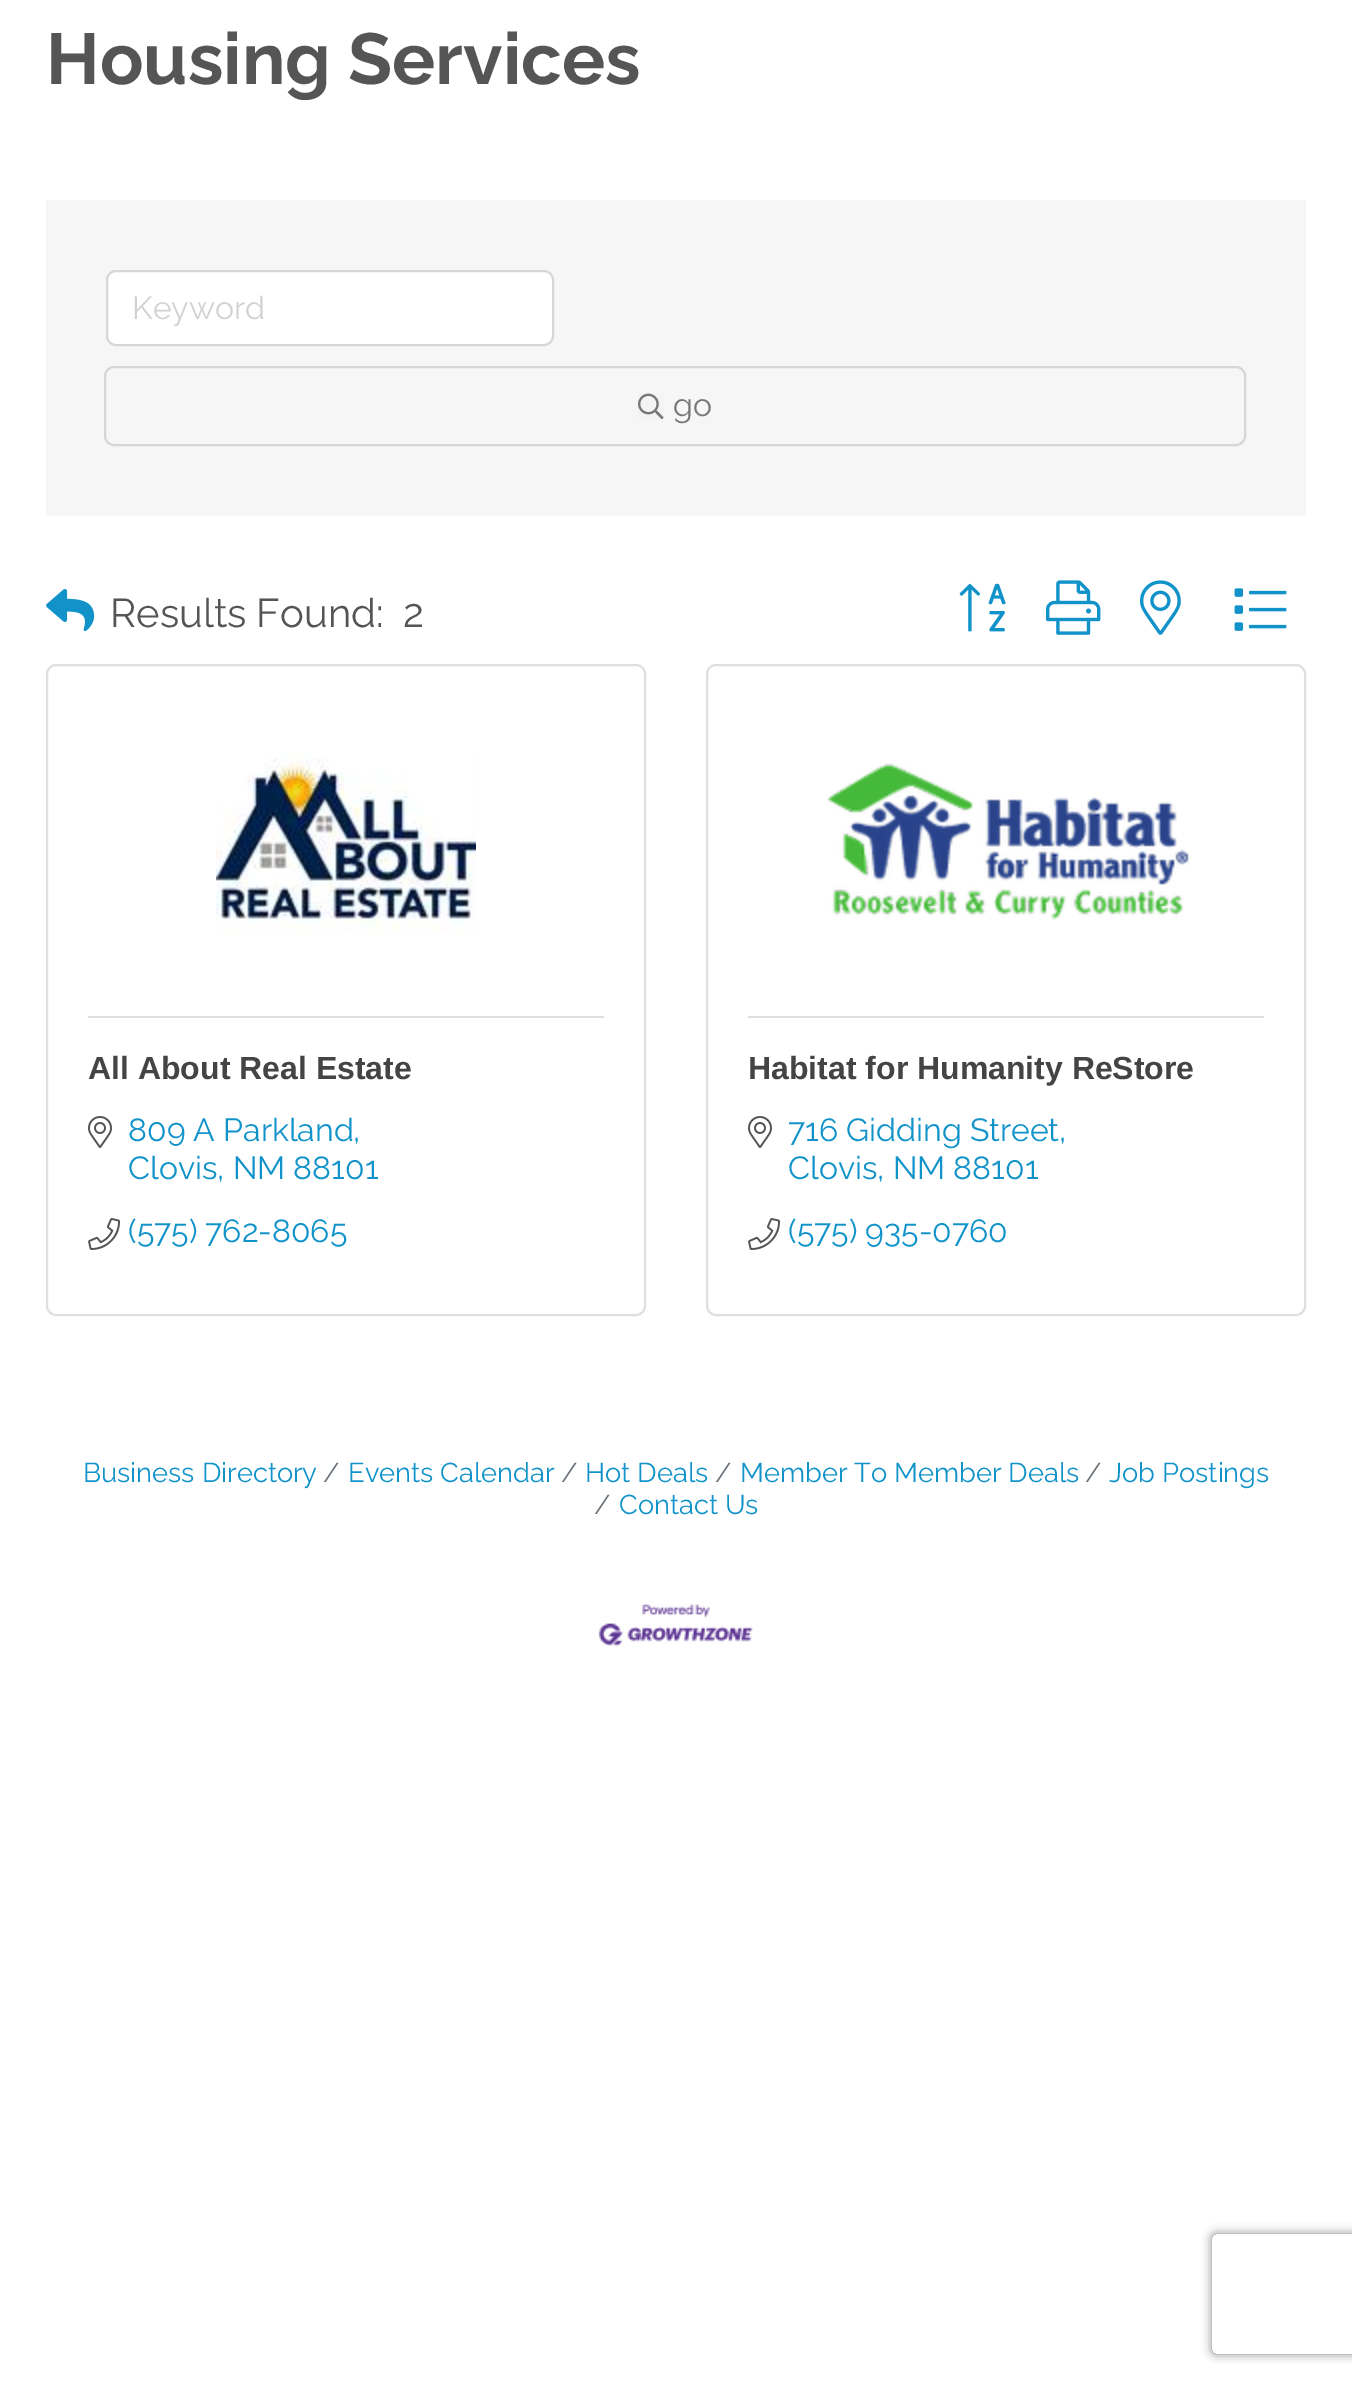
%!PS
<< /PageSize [1352 2382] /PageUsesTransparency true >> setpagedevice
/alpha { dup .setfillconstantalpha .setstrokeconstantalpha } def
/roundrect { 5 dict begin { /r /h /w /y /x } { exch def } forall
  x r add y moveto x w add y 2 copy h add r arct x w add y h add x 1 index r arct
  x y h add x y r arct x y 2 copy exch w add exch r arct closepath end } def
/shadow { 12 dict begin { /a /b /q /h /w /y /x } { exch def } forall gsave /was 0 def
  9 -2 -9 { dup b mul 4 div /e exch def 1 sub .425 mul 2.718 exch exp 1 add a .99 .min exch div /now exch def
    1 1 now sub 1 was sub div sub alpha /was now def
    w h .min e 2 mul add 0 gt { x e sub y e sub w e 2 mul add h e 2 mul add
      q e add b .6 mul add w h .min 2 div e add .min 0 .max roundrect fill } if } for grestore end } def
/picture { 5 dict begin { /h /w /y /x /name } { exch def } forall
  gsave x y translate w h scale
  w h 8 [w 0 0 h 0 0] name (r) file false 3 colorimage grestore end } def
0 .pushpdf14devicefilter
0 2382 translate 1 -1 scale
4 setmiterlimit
1 setgray
0 0 1352 2382 rectfill
/Raleway-Bold [72 0 0 -72 0 0] selectfont
0.333 setgray
46 84 moveto (Housing Services) show
0.965 setgray
46 200 1260 316 rectfill
1 setgray
107 271 446 74 9 roundrect gsave fill grestore
0.843 setgray
2 setlinewidth
stroke
/Raleway-Regular [32 0 0 -32 0 0] selectfont
0.824 setgray
132 319 moveto (Keyword) show
0.839 setgray
105 367 1140 78 9 roundrect stroke
(img1.rgb) 638 393 26 27 picture
0.467 setgray
673 416 moveto (go) show
(img2.rgb) 46 589 49 42 picture
/Raleway-Regular [40 0 0 -40 0 0] selectfont
0.333 setgray
110 627 moveto (Results Found:) show
403 627 moveto (2) show
(img3.rgb) 959 583 47 49 picture
(img4.rgb) 1046 580 55 55 picture
(img5.rgb) 1140 580 41 55 picture
(img6.rgb) 1234 588 53 43 picture
0.875 setgray
47 665 598 650 9 roundrect stroke
(img7.rgb) 216 751 260 183 picture
88 1016 516 2 rectfill
/LiberationSans-Bold [32 0 0 -32 0 0] selectfont
0.267 setgray
88 1079 moveto (All About Real Estate) show
(img8.rgb) 88 1116 24 32 picture
/Raleway-Regular [32 0 0 -32 0 0] selectfont
0.067 0.576 0.792 setrgbcolor
128 1141 moveto (809 A Parkland,) show
128 1179 moveto (Clovis, NM 88101) show
(img9.rgb) 88 1218 33 32 picture
128 1242 moveto (\(575\) 762-8065) show
0.875 setgray
707 665 598 650 9 roundrect stroke
(img10.rgb) 827 763 362 157 picture
748 1016 516 2 rectfill
/LiberationSans-Bold [32 0 0 -32 0 0] selectfont
0.267 setgray
748 1079 moveto (Habitat for Humanity ReStore) show
(img8.rgb) 748 1116 24 32 picture
/Raleway-Regular [32 0 0 -32 0 0] selectfont
0.067 0.576 0.792 setrgbcolor
788 1141 moveto (716 Gidding Street,) show
788 1179 moveto (Clovis, NM 88101) show
(img9.rgb) 748 1218 33 32 picture
788 1242 moveto (\(575\) 935-0760) show
/Raleway-Regular [27.25 0 0 -27.25 0 0] selectfont
83 1482 moveto (Business Directory) show
0.424 0.459 0.49 setrgbcolor
323 1482 moveto (/) show
0.067 0.576 0.792 setrgbcolor
348 1482 moveto (Events Calendar) show
0.424 0.459 0.49 setrgbcolor
561 1482 moveto (/) show
0.067 0.576 0.792 setrgbcolor
585 1482 moveto (Hot Deals) show
0.424 0.459 0.49 setrgbcolor
715 1482 moveto (/) show
0.067 0.576 0.792 setrgbcolor
740 1482 moveto (Member To Member Deals) show
0.424 0.459 0.49 setrgbcolor
1085 1482 moveto (/) show
0.067 0.576 0.792 setrgbcolor
1109 1482 moveto (Job Postings) show
0.424 0.459 0.49 setrgbcolor
594 1514 moveto (/) show
0.067 0.576 0.792 setrgbcolor
619 1514 moveto (Contact Us) show
(img11.rgb) 598 1604 155 42 picture
gsave
newpath 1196 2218 moveto 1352 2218 lineto 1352 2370 lineto 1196 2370 lineto closepath 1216 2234 moveto 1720 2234 lineto 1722 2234 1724 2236 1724 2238 curveto 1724 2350 lineto 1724 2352 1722 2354 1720 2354 curveto 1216 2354 lineto 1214 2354 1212 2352 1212 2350 curveto 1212 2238 lineto 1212 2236 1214 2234 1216 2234 curveto closepath eoclip newpath
0.502 setgray
1212 2234 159 120 4 5 1 shadow
grestore
.poppdf14devicefilter showpage
